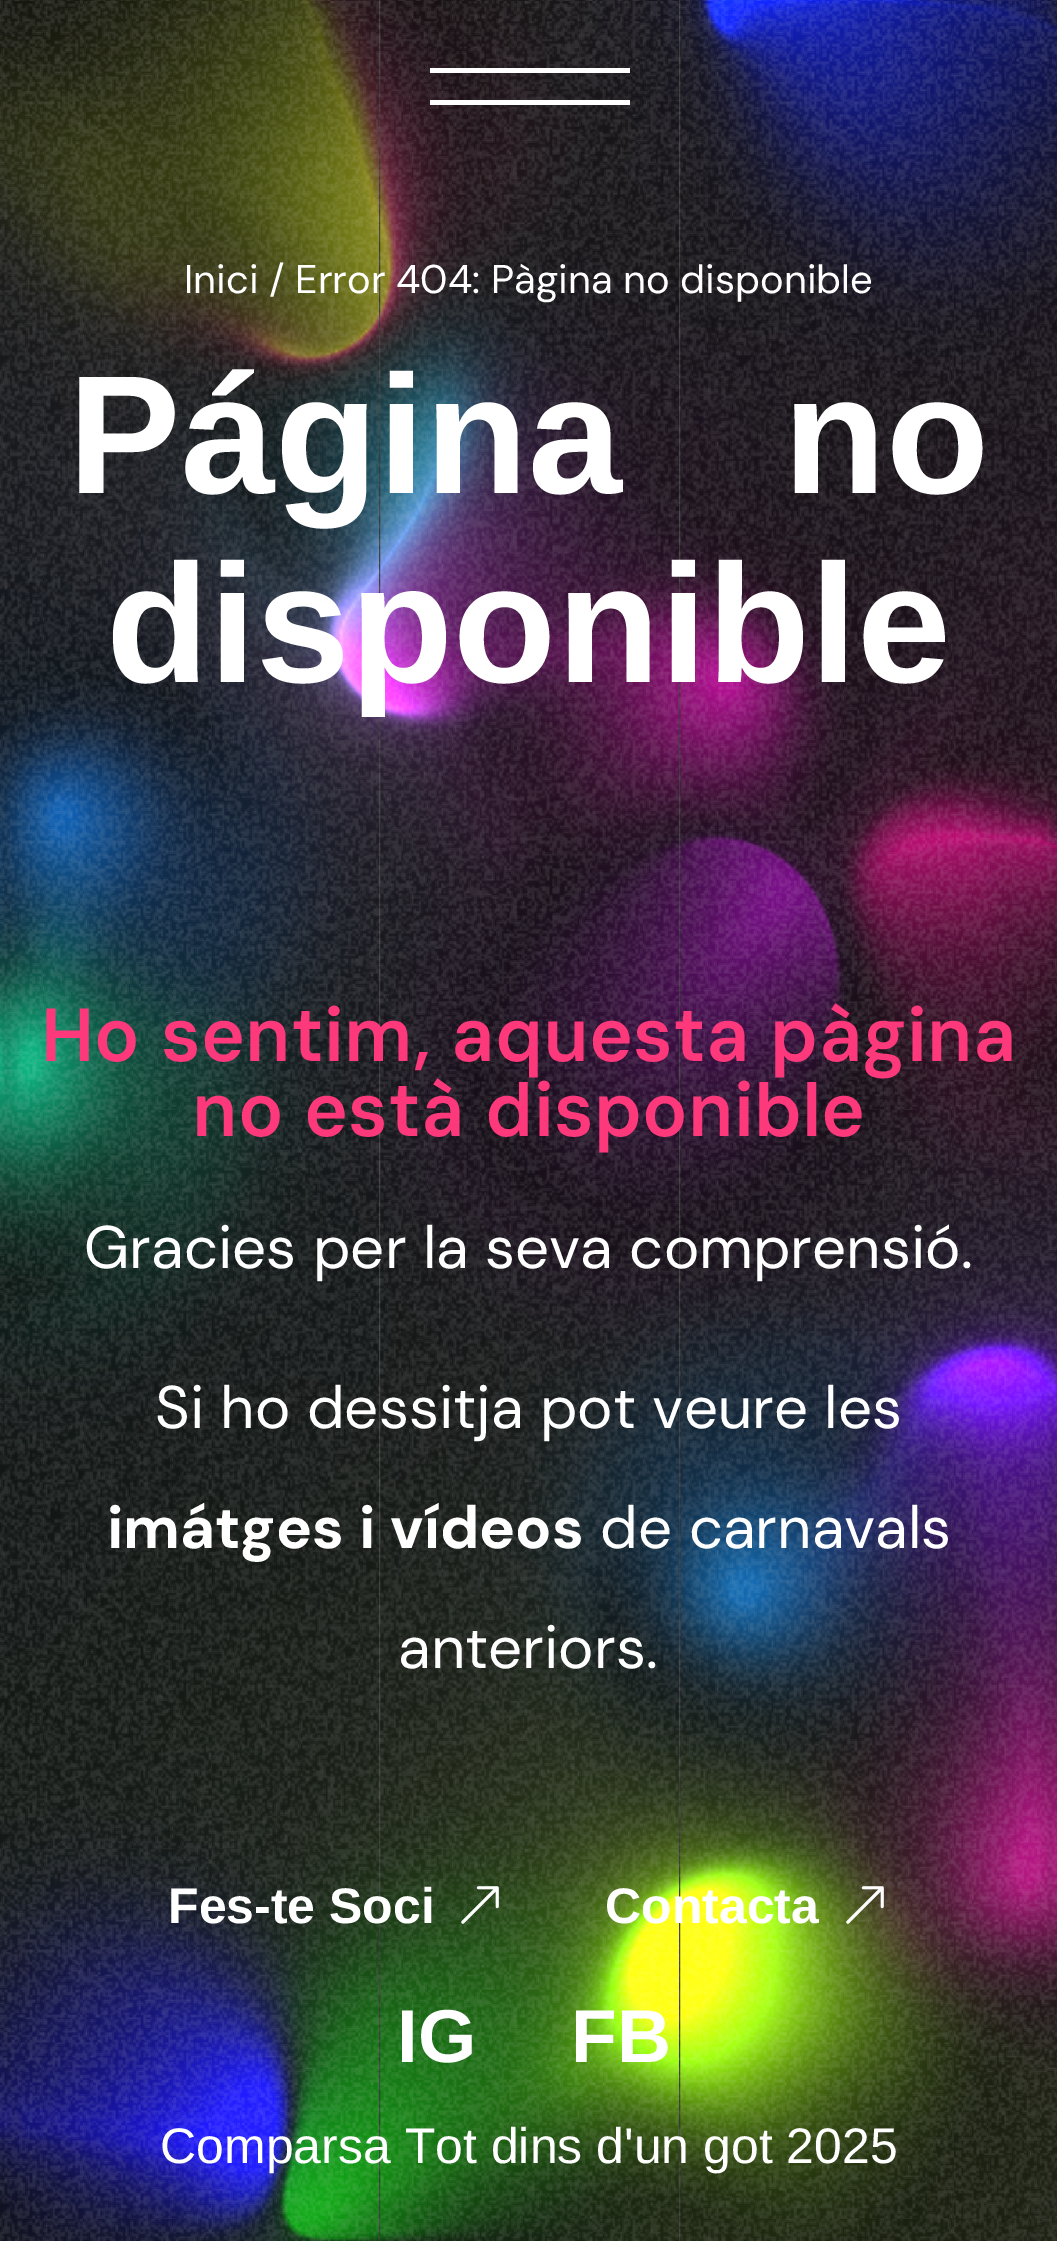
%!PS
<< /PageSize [1057 2241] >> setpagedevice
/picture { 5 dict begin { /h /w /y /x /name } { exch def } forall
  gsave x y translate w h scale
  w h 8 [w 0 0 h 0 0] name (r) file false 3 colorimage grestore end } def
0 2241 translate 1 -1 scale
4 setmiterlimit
1 setgray
0 0 1057 2241 rectfill
(img1.rgb) 0 0 1057 2241 picture
(img3.rgb) 379 0 302 2241 picture
(img2.rgb) 0 0 1057 2241 picture
430 68 200 5 rectfill
430 100 200 5 rectfill
/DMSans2-Regular [40 0 0 -40 0 0] selectfont
184 293 moveto (Inici / Error 404: Pàgina no disponible) show
/LiberationSans-Bold [169 0 0 -169 0 0] selectfont
68 493 moveto (Página) show
783 493 moveto (no) show
106 682 moveto (disponible) show
/DMSans-SemiBold [75 0 0 -75 0 0] selectfont
0.992 0.224 0.486 setrgbcolor
41 1061 moveto 2 0 32 (Ho sentim, aquesta pàgina) widthshow
192 1136 moveto 2 0 32 (no està disponible) widthshow
/DMSans-Regular [60 0 0 -60 0 0] selectfont
1 setgray
84 1268 moveto 0.5 0 32 (Gracies per la seva comprensió.) widthshow
155 1428 moveto 0.5 0 32 (Si ho dessitja pot veure les) widthshow
/DMSans-Bold [60 0 0 -60 0 0] selectfont
107 1548 moveto 1 0 32 (imátges i vídeos) widthshow
/DMSans-Regular [60 0 0 -60 0 0] selectfont
600 1548 moveto 1 0 32 (de carnavals) widthshow
398 1668 moveto (anteriors.) show
/LiberationSans-Bold [50 0 0 -50 0 0] selectfont
168 1923 moveto (Fes-te Soci) show
(img4.rgb) 461 1886 38 38 picture
605 1923 moveto (Contacta) show
(img5.rgb) 846 1886 38 38 picture
/LiberationSans-Bold [75 0 0 -75 0 0] selectfont
397 2062 moveto (IG) show
571 2062 moveto (FB) show
/LiberationSans-Regular [50 0 0 -50 0 0] selectfont
160 2163 moveto (Comparsa Tot dins d'un got 2025) show
showpage
